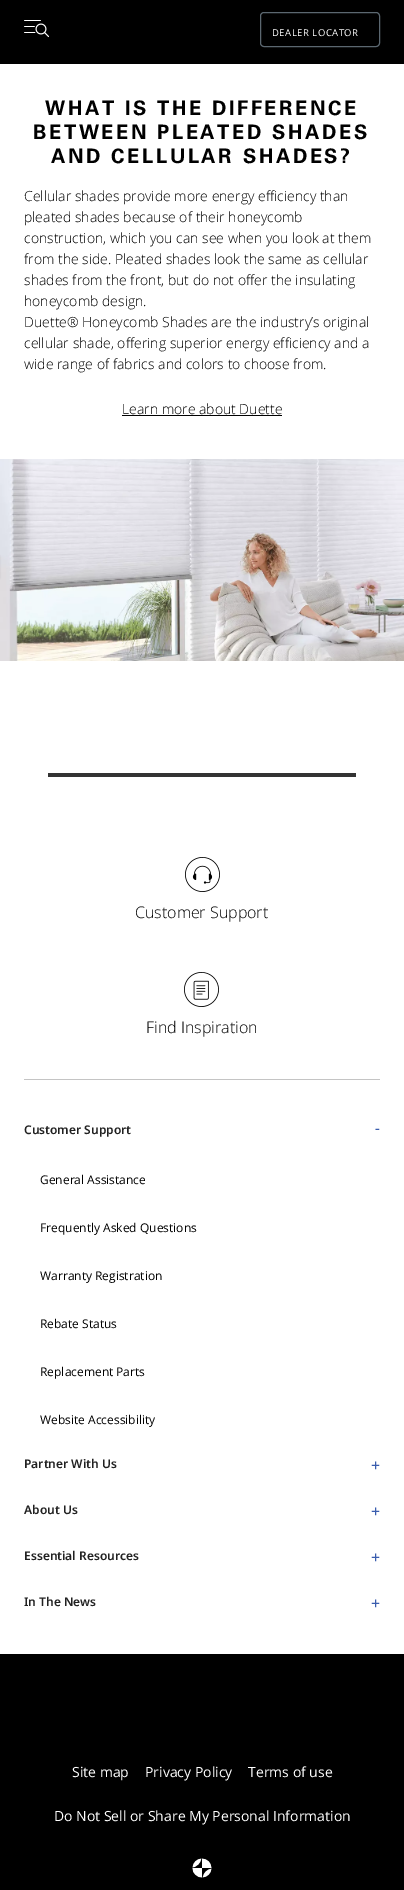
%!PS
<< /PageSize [404 1890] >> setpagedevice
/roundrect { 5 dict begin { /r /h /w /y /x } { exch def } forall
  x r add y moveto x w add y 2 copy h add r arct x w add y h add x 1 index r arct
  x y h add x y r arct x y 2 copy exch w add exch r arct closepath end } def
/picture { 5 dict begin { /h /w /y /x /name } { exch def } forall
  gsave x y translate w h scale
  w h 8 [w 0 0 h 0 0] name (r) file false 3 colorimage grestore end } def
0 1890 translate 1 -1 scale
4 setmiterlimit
1 setgray
0 0 404 1890 rectfill
0 setgray
0 0 404 64 rectfill
(img1.rgb) 24 20 25 18 picture
0.357 0.404 0.439 setrgbcolor
260.5 12.5 119 34 3.5 roundrect stroke
/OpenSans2-Regular [9.5 0 0 -9.5 0 0] selectfont
1 setgray
272 36 moveto 0.5 0 (DEALER LOCATOR) ashow
/Univers-Bold [20 0 0 -20 0 0] selectfont
0 setgray
45 115 moveto 2.6 0 (WHAT IS THE DIFFERENCE) ashow
33 139 moveto 2.6 0 (BETWEEN PLEATED SHADES) ashow
51 163 moveto 2.6 0 (AND CELLULAR SHADES?) ashow
/OpenSans-Light [14 0 0 -14 0 0] selectfont
24 201 moveto (Cellular shades provide more energy efficiency than) show
24 222 moveto (pleated shades because of their honeycomb) show
24 243 moveto (construction, which you can see when you look at them) show
24 264 moveto (from the side. Pleated shades look the same as cellular) show
24 285 moveto (shades from the front, but do not offer the insulating) show
24 306 moveto (honeycomb design.) show
24 327 moveto (Duette® Honeycomb Shades are the industry’s original) show
24 348 moveto (cellular shade, offering superior energy efficiency and a) show
24 369 moveto (wide range of fabrics and colors to choose from.) show
122 414 moveto (Learn more about Duette) show
122 415 160 1 rectfill
(img2.rgb) 0 459 404 202 picture
0.2 setgray
48 773 308 4 rectfill
(img3.rgb) 185 857 35 35 picture
/OpenSans2-Light [16 0 0 -16 0 0] selectfont
0 setgray
135 918 moveto (Customer Support) show
(img4.rgb) 184 972 35 35 picture
146 1033 moveto (Find Inspiration) show
0.769 setgray
24 1079 356 1 rectfill
/NotoSans-SemiBold [12 0 0 -12 0 0] selectfont
0.129 setgray
24 1134 moveto (Customer Support) show
/NotoSans-Regular [16 0 0 -16 0 0] selectfont
0.227 0.365 0.682 setrgbcolor
gsave 380 1125 translate 180 rotate 0 0 moveto (-) show grestore
/OpenSans-Regular [12 0 0 -12 0 0] selectfont
0 setgray
40 1184 moveto (General Assistance) show
40 1232 moveto (Frequently Asked Questions) show
40 1280 moveto (Warranty Registration) show
40 1328 moveto (Rebate Status) show
40 1376 moveto (Replacement Parts) show
40 1424 moveto (Website Accessibility) show
/NotoSans-SemiBold [12 0 0 -12 0 0] selectfont
0.129 setgray
24 1468 moveto (Partner With Us) show
/NotoSans-Regular [16 0 0 -16 0 0] selectfont
0.227 0.365 0.682 setrgbcolor
371 1471 moveto (+) show
/NotoSans-SemiBold [12 0 0 -12 0 0] selectfont
0.129 setgray
24 1514 moveto (About Us) show
/NotoSans-Regular [16 0 0 -16 0 0] selectfont
0.227 0.365 0.682 setrgbcolor
371 1517 moveto (+) show
/NotoSans-SemiBold [12 0 0 -12 0 0] selectfont
0.129 setgray
24 1560 moveto (Essential Resources) show
/NotoSans-Regular [16 0 0 -16 0 0] selectfont
0.227 0.365 0.682 setrgbcolor
371 1563 moveto (+) show
/NotoSans-SemiBold [12 0 0 -12 0 0] selectfont
0.129 setgray
24 1606 moveto (In The News) show
/NotoSans-Regular [16 0 0 -16 0 0] selectfont
0.227 0.365 0.682 setrgbcolor
371 1609 moveto (+) show
0 setgray
0 1654 404 236 rectfill
/OpenSans-Regular [14 0 0 -14 0 0] selectfont
1 setgray
72 1777 moveto (Site map) show
145 1777 moveto (Privacy Policy) show
248 1777 moveto (Terms of use) show
54 1821 moveto (Do Not Sell or Share My Personal Information) show
(img5.rgb) 192 1858 20 20 picture
showpage
